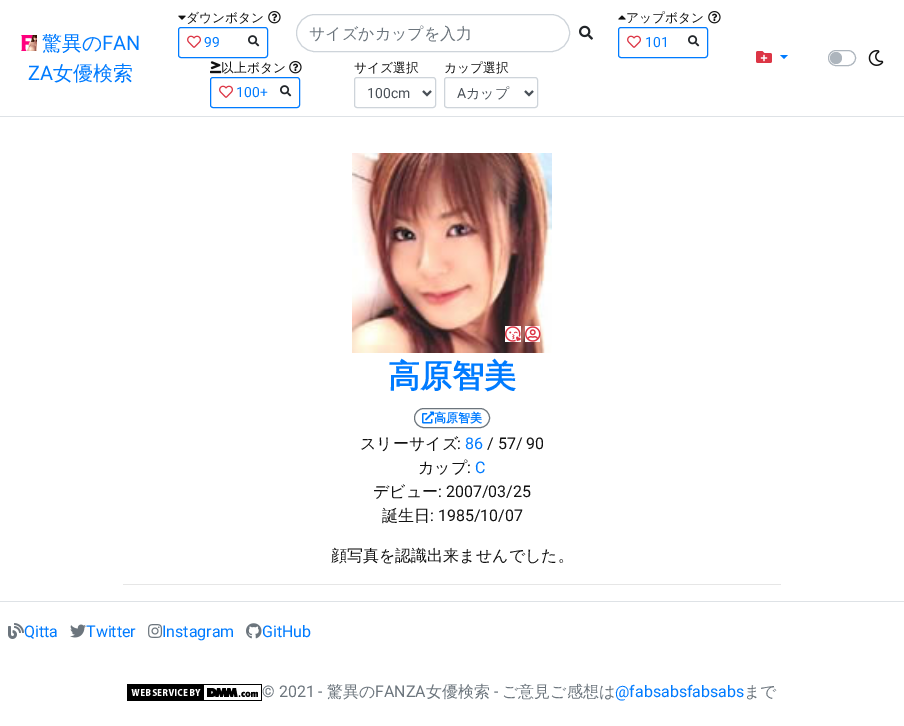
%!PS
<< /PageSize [904 726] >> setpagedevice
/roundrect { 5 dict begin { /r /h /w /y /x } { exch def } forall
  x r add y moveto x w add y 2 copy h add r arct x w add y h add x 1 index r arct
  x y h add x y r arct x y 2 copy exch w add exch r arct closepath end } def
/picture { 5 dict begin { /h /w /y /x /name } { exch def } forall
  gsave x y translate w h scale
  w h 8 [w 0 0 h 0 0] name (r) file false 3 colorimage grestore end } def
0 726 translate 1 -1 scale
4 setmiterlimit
1 setgray
0 0 904 726 rectfill
0.871 0.886 0.902 setrgbcolor
0 116 904 1 rectfill
(img1.rgb) 21 35 16 16 picture
/WenQuanYiZenHei-Medium [20 0 0 -20 0 0] selectfont
0 0.482 1 setrgbcolor
42 50 moveto (驚異の) show
/Roboto-Regular [20 0 0 -20 0 0] selectfont
102 50 moveto (FAN) show
28 80 moveto (ZA) show
/WenQuanYiZenHei-Medium [20 0 0 -20 0 0] selectfont
53 80 moveto (女優検索) show
(img2.rgb) 178 15 8 5 picture
/WenQuanYiZenHei-Medium [12.75 0 0 -12.75 0 0] selectfont
0.067 setgray
186 22 moveto (ダウンボタン) show
(img3.rgb) 268 11 13 13 picture
0 0.482 1 setrgbcolor
178.5 27.5 89 30 2.5 roundrect stroke
(img4.rgb) 187 35 14 13 picture
/Roboto-Regular [14 0 0 -14 0 0] selectfont
204 47 moveto (99) show
(img5.rgb) 248 35 12 12 picture
0.808 0.831 0.855 setrgbcolor
296.5 14.5 273 37 18.5 roundrect stroke
/WenQuanYiZenHei-Medium [16 0 0 -16 0 0] selectfont
0.424 0.459 0.49 setrgbcolor
309 39 moveto (サイズかカップを入力) show
(img6.rgb) 579 25 14 15 picture
(img7.rgb) 618 15 8 5 picture
/WenQuanYiZenHei-Medium [12.75 0 0 -12.75 0 0] selectfont
0.067 setgray
626 22 moveto (アップボタン) show
(img3.rgb) 708 11 13 13 picture
0 0.482 1 setrgbcolor
618.5 27.5 89 30 2.5 roundrect stroke
(img4.rgb) 627 35 14 13 picture
/Roboto-Regular [14 0 0 -14 0 0] selectfont
645 47 moveto (101) show
(img5.rgb) 688 35 12 12 picture
(img8.rgb) 210 61 12 13 picture
/WenQuanYiZenHei-Medium [12.75 0 0 -12.75 0 0] selectfont
0.067 setgray
221 72 moveto (以上ボタン) show
(img3.rgb) 289 61 13 13 picture
0 0.482 1 setrgbcolor
210.5 77.5 89 30 2.5 roundrect stroke
(img4.rgb) 219 85 14 13 picture
/Roboto-Regular [14 0 0 -14 0 0] selectfont
236 97 moveto (100+) show
(img5.rgb) 280 85 12 12 picture
/WenQuanYiZenHei-Medium [12.75 0 0 -12.75 0 0] selectfont
0.067 setgray
354 72 moveto (サイズ選択) show
0.808 0.831 0.855 setrgbcolor
354.5 77.5 81 30 2.5 roundrect stroke
0.286 0.314 0.341 setrgbcolor
2 setlinewidth
newpath 423 91 moveto 427 95 lineto 431 91 lineto stroke
/Roboto-Regular [14 0 0 -14 0 0] selectfont
367 98 moveto (100cm) show
/WenQuanYiZenHei-Medium [12.75 0 0 -12.75 0 0] selectfont
0.067 setgray
444 72 moveto (カップ選択) show
0.808 0.831 0.855 setrgbcolor
1 setlinewidth
444.5 77.5 93 30 2.5 roundrect stroke
0.286 0.314 0.341 setrgbcolor
2 setlinewidth
newpath 525 91 moveto 529 95 lineto 533 91 lineto stroke
/Roboto-Regular [14 0 0 -14 0 0] selectfont
457 98 moveto (A) show
/WenQuanYiZenHei-Medium [14 0 0 -14 0 0] selectfont
466 98 moveto (カップ) show
(img9.rgb) 756 51 16 12 picture
0 0.482 1 setrgbcolor
newpath 780 55 moveto 788 55 lineto 784 59 lineto closepath fill
0.678 0.71 0.741 setrgbcolor
1 setlinewidth
828.5 50.5 27 15 7.5 roundrect stroke
newpath 836 58 6 0 360 arc closepath fill
(img10.rgb) 868 50 16 16 picture
(img11.rgb) 352 153 200 200 picture
1 setgray
505 326 16 16 rectfill
(img12.rgb) 505 326 16 16 picture
525 326 15 16 rectfill
(img13.rgb) 525 326 16 16 picture
/WenQuanYiZenHei-Bold [32 0 0 -32 0 0] selectfont
0 0.482 1 setrgbcolor
388 387 moveto (高原智美) show
0.424 0.459 0.49 setrgbcolor
414.5 408.5 75 19 9.5 roundrect stroke
(img14.rgb) 422 411 12 13 picture
/WenQuanYiZenHei-Bold [12 0 0 -12 0 0] selectfont
0 0.482 1 setrgbcolor
434 422 moveto (高原智美) show
/WenQuanYiZenHei-Medium [16 0 0 -16 0 0] selectfont
0.067 setgray
360 449 moveto (スリーサイズ) show
/Roboto-Regular [16 0 0 -16 0 0] selectfont
457 449 moveto (:) show
0 0.482 1 setrgbcolor
465 449 moveto (86) show
0.067 setgray
487 449 moveto (/ 57/ 90) show
/WenQuanYiZenHei-Medium [16 0 0 -16 0 0] selectfont
418 473 moveto (カップ) show
/Roboto-Regular [16 0 0 -16 0 0] selectfont
467 473 moveto (:) show
0 0.482 1 setrgbcolor
475 473 moveto (C) show
/WenQuanYiZenHei-Medium [16 0 0 -16 0 0] selectfont
0.067 setgray
373 497 moveto (デビュー) show
/Roboto-Regular [16 0 0 -16 0 0] selectfont
438 497 moveto (: 2007/03/25) show
/WenQuanYiZenHei-Medium [16 0 0 -16 0 0] selectfont
382 521 moveto (誕生日) show
/Roboto-Regular [16 0 0 -16 0 0] selectfont
430 521 moveto (: 1985/10/07) show
/WenQuanYiZenHei-Medium [16 0 0 -16 0 0] selectfont
331 561 moveto (顔写真を認識出来ませんでした。) show
0.902 setgray
123 584 658 1 rectfill
0.871 0.886 0.902 setrgbcolor
0 601 904 1 rectfill
(img15.rgb) 8 623 16 16 picture
/Roboto-Regular [16 0 0 -16 0 0] selectfont
0 0.482 1 setrgbcolor
24 637 moveto (Qitta) show
(img16.rgb) 70 624 16 14 picture
86 637 moveto (Twitter) show
(img17.rgb) 148 624 15 14 picture
162 637 moveto (Instagram) show
(img18.rgb) 246 623 16 16 picture
262 637 moveto (GitHub) show
(img19.rgb) 127 684 135 17 picture
0.424 0.459 0.49 setrgbcolor
262 697 moveto (© 2021 -) show
/WenQuanYiZenHei-Medium [16 0 0 -16 0 0] selectfont
327 697 moveto (驚異の) show
/Roboto-Regular [16 0 0 -16 0 0] selectfont
375 697 moveto (FANZA) show
/WenQuanYiZenHei-Medium [16 0 0 -16 0 0] selectfont
426 697 moveto (女優検索) show
/Roboto-Regular [16 0 0 -16 0 0] selectfont
494 697 moveto (-) show
/WenQuanYiZenHei-Medium [16 0 0 -16 0 0] selectfont
502 697 moveto (ご意見ご感想は) show
/Roboto-Regular [16 0 0 -16 0 0] selectfont
0 0.482 1 setrgbcolor
615 697 moveto (@fabsabsfabsabs) show
/WenQuanYiZenHei-Medium [16 0 0 -16 0 0] selectfont
0.424 0.459 0.49 setrgbcolor
744 697 moveto (まで) show
showpage
